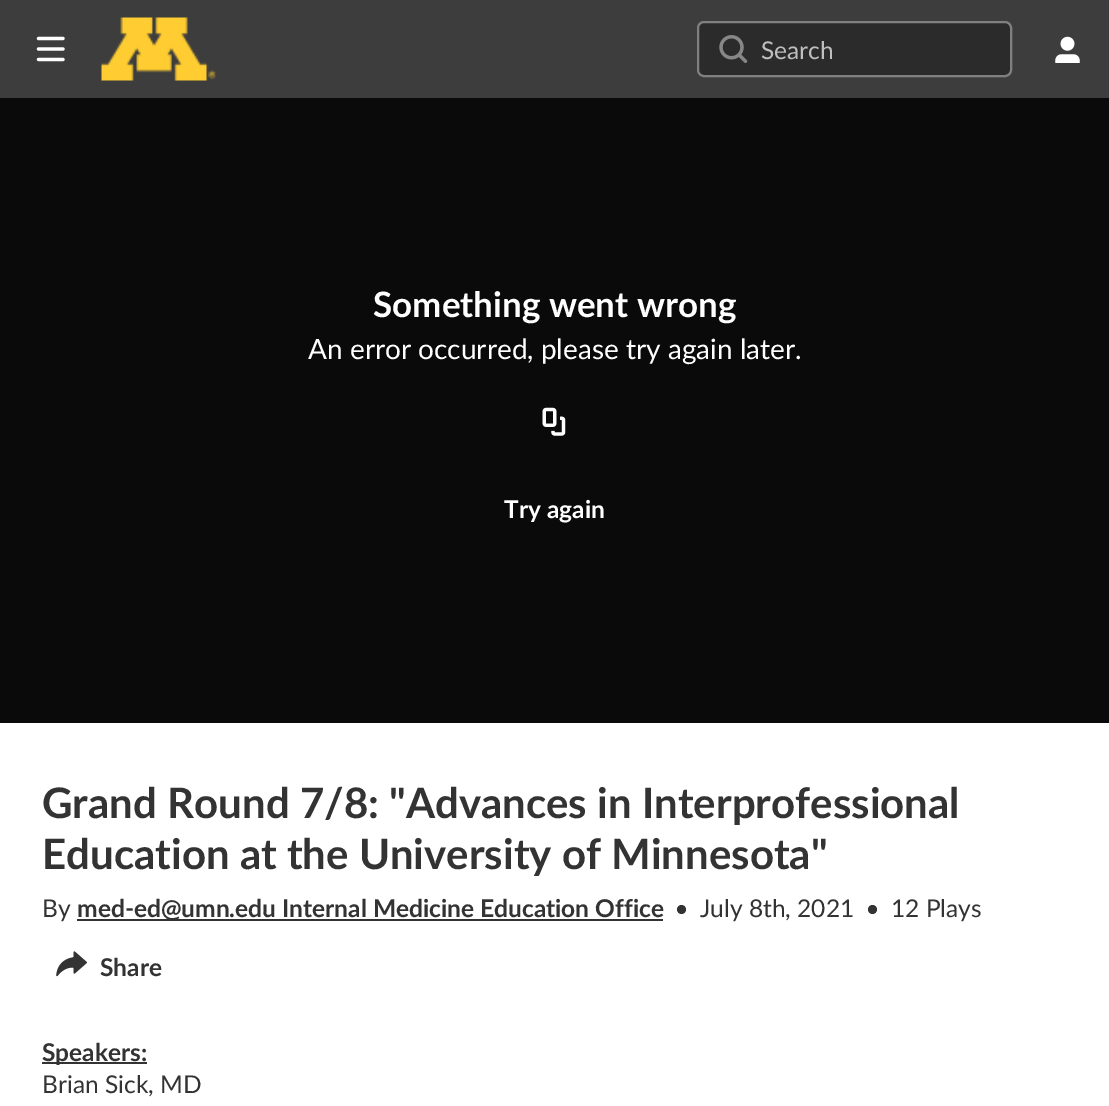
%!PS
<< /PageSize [1109 1106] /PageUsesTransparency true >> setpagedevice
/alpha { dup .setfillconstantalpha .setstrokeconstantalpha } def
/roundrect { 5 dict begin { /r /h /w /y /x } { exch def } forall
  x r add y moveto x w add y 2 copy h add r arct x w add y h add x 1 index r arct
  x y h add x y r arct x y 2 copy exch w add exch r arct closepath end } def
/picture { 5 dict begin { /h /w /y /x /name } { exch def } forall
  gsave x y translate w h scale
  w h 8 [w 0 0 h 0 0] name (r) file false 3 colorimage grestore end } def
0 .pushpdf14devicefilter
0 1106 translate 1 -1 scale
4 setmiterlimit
1 setgray
0 0 1109 1106 rectfill
0.239 setgray
0 0 1109 98 rectfill
(img1.rgb) 36 36 29 26 picture
(img2.rgb) 101 17 115 64 picture
0.169 setgray
697 21 315 56 7 roundrect fill
0.4 alpha
1 setgray
2 setlinewidth
698 22 313 54 6 roundrect stroke
1 alpha
(img3.rgb) 719 35 29 28 picture
/Lato-Regular [24.5 0 0 -24.5 0 0] selectfont
0.749 setgray
761 59 moveto (Search) show
(img4.rgb) 1055 36 25 27 picture
0.039 setgray
0 98 1109 625 rectfill
/Lato-Bold [35 0 0 -35 0 0] selectfont
1 setgray
373 317 moveto (Something went wrong) show
/Lato-Regular [28 0 0 -28 0 0] selectfont
308 359 moveto (An error occurred, please try again later.) show
(img5.rgb) 542 407 24 29 picture
/Lato-Bold [24.5 0 0 -24.5 0 0] selectfont
504 518 moveto (Try again) show
/Lato-Bold [42 0 0 -42 0 0] selectfont
0.2 setgray
42 818 moveto (Grand Round 7/8: "Advances in Interprofessional) show
42 869 moveto (Education at the University of Minnesota") show
/Lato-Regular [24.5 0 0 -24.5 0 0] selectfont
42 917 moveto (By) show
77 919 586 2 rectfill
/Lato-Bold [24.5 0 0 -24.5 0 0] selectfont
77 917 moveto (med-ed@umn.edu Internal Medicine Education Office) show
newpath 681.5 909.5 4.5 0 360 arc closepath fill
/Lato-Regular [24.5 0 0 -24.5 0 0] selectfont
700 917 moveto (July 8th, 2021) show
newpath 872.5 909.5 4.5 0 360 arc closepath fill
891 917 moveto (12 Plays) show
(img6.rgb) 56 951 31 26 picture
/Lato-Bold [24.5 0 0 -24.5 0 0] selectfont
100 976 moveto (Share) show
42 1062 105 2 rectfill
42 1061 moveto (Speakers:) show
/Lato-Regular [24.5 0 0 -24.5 0 0] selectfont
42 1093 moveto (Brian Sick, MD) show
.poppdf14devicefilter showpage
